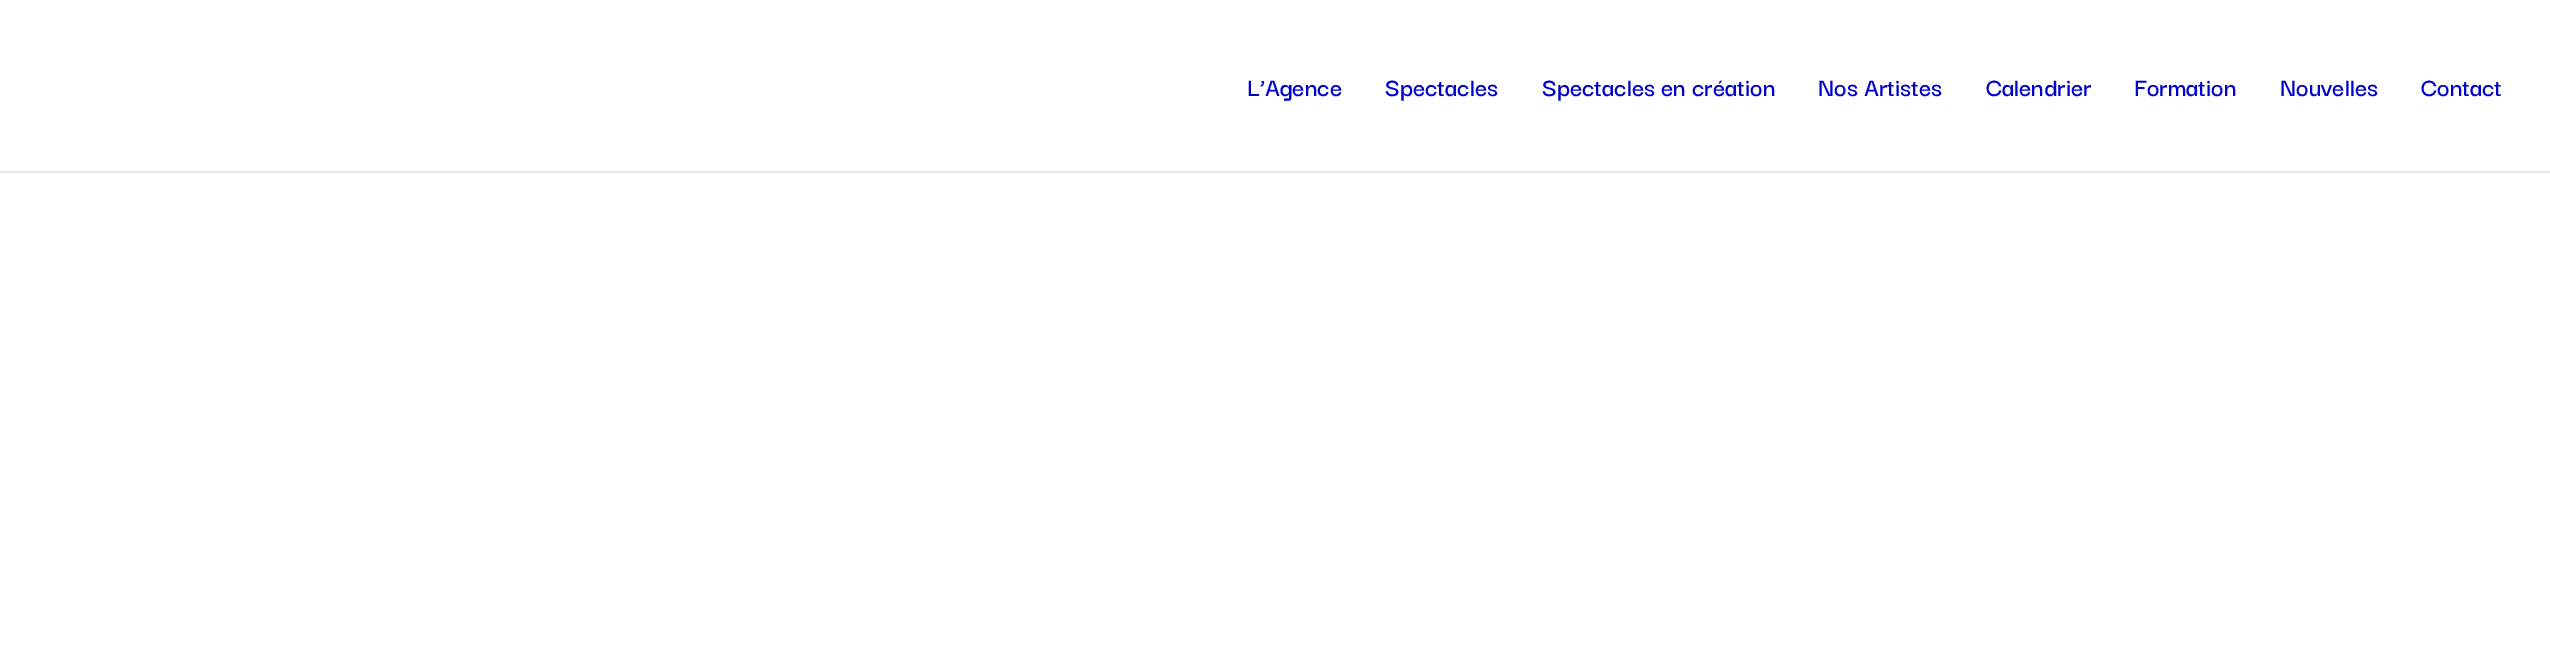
%!PS
<< /PageSize [2550 663] >> setpagedevice
0 663 translate 1 -1 scale
4 setmiterlimit
1 setgray
0 0 2550 663 rectfill
0.902 setgray
0 171 2550 2 rectfill
/DarkerGrotesque-SemiBold [27 0 0 -27 0 0] selectfont
0 0 0.8 setrgbcolor
1247 96 moveto (L’Agence) show
1385 96 moveto (Spectacles) show
1542 96 moveto (Spectacles en création) show
1818 96 moveto (Nos Artistes) show
1986 96 moveto (Calendrier) show
2134 96 moveto (Formation) show
2280 96 moveto (Nouvelles) show
2421 96 moveto (Contact) show
showpage
